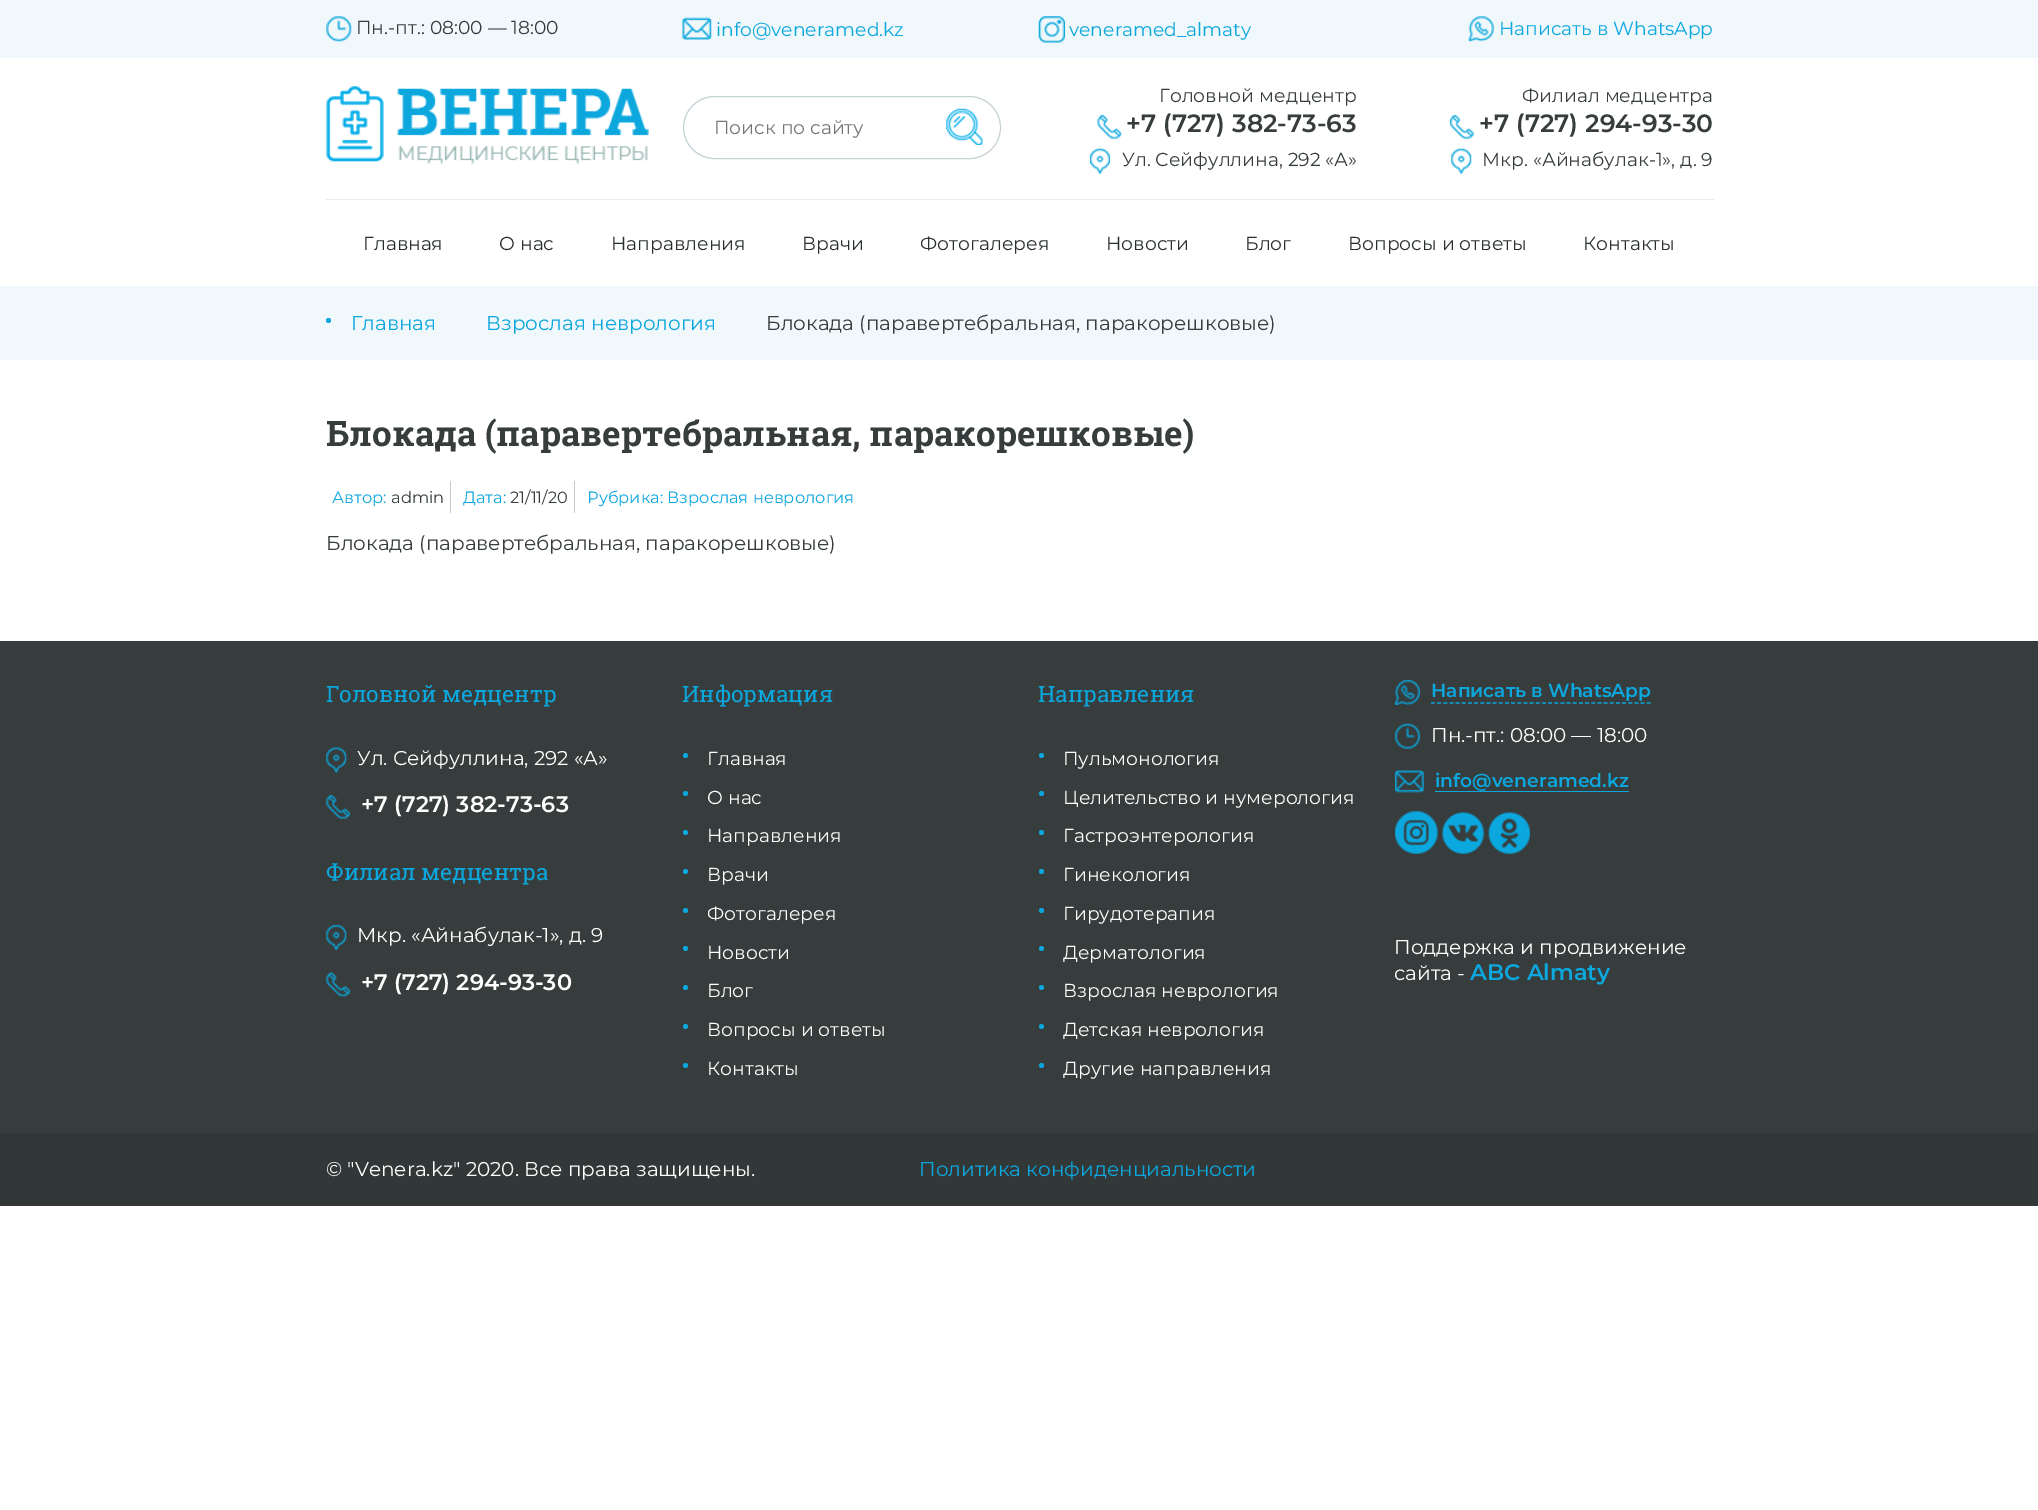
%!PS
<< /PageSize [2038 1510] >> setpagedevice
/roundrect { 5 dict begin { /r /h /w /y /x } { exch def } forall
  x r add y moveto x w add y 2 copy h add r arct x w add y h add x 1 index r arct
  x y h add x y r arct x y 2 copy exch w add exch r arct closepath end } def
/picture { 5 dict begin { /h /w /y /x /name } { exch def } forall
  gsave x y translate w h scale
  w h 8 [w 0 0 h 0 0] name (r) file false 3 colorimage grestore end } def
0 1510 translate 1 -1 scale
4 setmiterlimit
1 setgray
0 0 2038 1510 rectfill
0.941 0.973 0.984 setrgbcolor
0 0 2038 58 rectfill
(img1.rgb) 326 16 26 26 picture
/Montserrat-Regular [18.75 0 0 -18.75 0 0] selectfont
0.216 0.239 0.239 setrgbcolor
356 34 moveto (Пн.-пт.: 08:00 — 18:00) show
(img2.rgb) 682 17 30 23 picture
0.043 0.655 0.867 setrgbcolor
716 36 moveto (info@veneramed.kz) show
(img3.rgb) 1038 16 27 27 picture
1069 36 moveto (veneramed_almaty) show
(img4.rgb) 1468 16 26 26 picture
1499 35 moveto (Написать в WhatsApp) show
(img5.rgb) 326 86 323 78 picture
0.773 0.824 0.839 setrgbcolor
683.5 96.5 317 62 31 roundrect stroke
0.459 setgray
714 134 moveto (Поиск по сайту) show
(img6.rgb) 946 108 37 37 picture
0.216 0.239 0.239 setrgbcolor
1159 102 moveto (Головной медцентр) show
(img7.rgb) 1097 115 25 24 picture
/Montserrat-SemiBold [25 0 0 -25 0 0] selectfont
1126 132 moveto (+7 \(727\) 382-73-63) show
(img8.rgb) 1090 148 20 26 picture
/Montserrat-Regular [18.75 0 0 -18.75 0 0] selectfont
1122 166 moveto (Ул. Сейфуллина, 292 «А») show
1522 102 moveto (Филиал медцентра) show
(img9.rgb) 1450 115 24 24 picture
/Montserrat-SemiBold [25 0 0 -25 0 0] selectfont
1479 132 moveto (+7 \(727\) 294-93-30) show
(img10.rgb) 1451 148 21 26 picture
/Montserrat-Regular [18.75 0 0 -18.75 0 0] selectfont
1482 166 moveto (Мкр. «Айнабулак-1», д. 9) show
0.894 0.929 0.941 setrgbcolor
326 199 1388 1 rectfill
0.161 0.18 0.188 setrgbcolor
363 250 moveto (Главная) show
499 250 moveto (О нас) show
611 250 moveto (Направления) show
802 250 moveto (Врачи) show
920 250 moveto (Фотогалерея) show
1106 250 moveto (Новости) show
1245 250 moveto (Блог) show
1348 250 moveto (Вопросы и ответы) show
1583 250 moveto (Контакты) show
0.941 0.973 0.984 setrgbcolor
0 286 2038 74 rectfill
0.043 0.655 0.867 setrgbcolor
newpath 328.5 320.5 2.5 0 360 arc closepath fill
/Montserrat-Regular [20 0 0 -20 0 0] selectfont
351 330 moveto (Главная) show
486 330 moveto (Взрослая неврология) show
0.216 0.239 0.239 setrgbcolor
766 330 moveto (Блокада \(паравертебральная, паракорешковые\)) show
/RobotoSlab-Bold [35 0 0 -35 0 0] selectfont
326 446 moveto (Блокада \(паравертебральная, паракорешковые\)) show
0.753 0.796 0.812 setrgbcolor
450 481 1 32 rectfill
/Montserrat-Regular [16.25 0 0 -16.25 0 0] selectfont
0.043 0.655 0.867 setrgbcolor
332 503 moveto (Автор:) show
0.216 0.239 0.239 setrgbcolor
391 503 moveto (admin) show
0.753 0.796 0.812 setrgbcolor
574 481 1 32 rectfill
0.043 0.655 0.867 setrgbcolor
463 503 moveto (Дата:) show
0.216 0.239 0.239 setrgbcolor
510 503 moveto (21/11/20) show
0.043 0.655 0.867 setrgbcolor
587 503 moveto (Рубрика: Взрослая неврология) show
/Montserrat-Regular [20 0 0 -20 0 0] selectfont
0.216 0.239 0.239 setrgbcolor
326 550 moveto (Блокада \(паравертебральная, паракорешковые\)) show
0 641 2038 492 rectfill
/RobotoSlab-Regular [22.5 0 0 -22.5 0 0] selectfont
0.043 0.655 0.867 setrgbcolor
326 702 moveto (Головной медцентр) show
(img11.rgb) 326 747 21 26 picture
/Montserrat-Regular [20 0 0 -20 0 0] selectfont
1 setgray
357 765 moveto (Ул. Сейфуллина, 292 «А») show
(img12.rgb) 326 795 24 24 picture
/Montserrat-SemiBold [22.5 0 0 -22.5 0 0] selectfont
361 812 moveto (+7 \(727\) 382-73-63) show
/RobotoSlab-Regular [22.5 0 0 -22.5 0 0] selectfont
0.043 0.655 0.867 setrgbcolor
326 880 moveto (Филиал медцентра) show
(img13.rgb) 326 925 21 25 picture
/Montserrat-Regular [20 0 0 -20 0 0] selectfont
1 setgray
357 942 moveto (Мкр. «Айнабулак-1», д. 9) show
(img14.rgb) 326 972 24 25 picture
/Montserrat-SemiBold [22.5 0 0 -22.5 0 0] selectfont
361 990 moveto (+7 \(727\) 294-93-30) show
/RobotoSlab-Regular [22.5 0 0 -22.5 0 0] selectfont
0.043 0.655 0.867 setrgbcolor
682 702 moveto (Информация) show
newpath 685.5 755.5 2.5 0 360 arc closepath fill
/Montserrat-Regular [18.75 0 0 -18.75 0 0] selectfont
1 setgray
707 765 moveto (Главная) show
0.043 0.655 0.867 setrgbcolor
newpath 685.5 793.5 2.5 0 360 arc closepath fill
1 setgray
707 804 moveto (О нас) show
0.043 0.655 0.867 setrgbcolor
newpath 685.5 832.5 2.5 0 360 arc closepath fill
1 setgray
707 842 moveto (Направления) show
0.043 0.655 0.867 setrgbcolor
newpath 685.5 871.5 2.5 0 360 arc closepath fill
1 setgray
707 881 moveto (Врачи) show
0.043 0.655 0.867 setrgbcolor
newpath 685.5 910.5 2.5 0 360 arc closepath fill
1 setgray
707 920 moveto (Фотогалерея) show
0.043 0.655 0.867 setrgbcolor
newpath 685.5 948.5 2.5 0 360 arc closepath fill
1 setgray
707 959 moveto (Новости) show
0.043 0.655 0.867 setrgbcolor
newpath 685.5 987.5 2.5 0 360 arc closepath fill
1 setgray
707 997 moveto (Блог) show
0.043 0.655 0.867 setrgbcolor
newpath 685.5 1026.5 2.5 0 360 arc closepath fill
1 setgray
707 1036 moveto (Вопросы и ответы) show
0.043 0.655 0.867 setrgbcolor
newpath 685.5 1065.5 2.5 0 360 arc closepath fill
1 setgray
707 1075 moveto (Контакты) show
/RobotoSlab-Regular [22.5 0 0 -22.5 0 0] selectfont
0.043 0.655 0.867 setrgbcolor
1038 702 moveto (Направления) show
newpath 1041.5 755.5 2.5 0 360 arc closepath fill
/Montserrat-Regular [18.75 0 0 -18.75 0 0] selectfont
1 setgray
1063 765 moveto (Пульмонология) show
0.043 0.655 0.867 setrgbcolor
newpath 1041.5 793.5 2.5 0 360 arc closepath fill
1 setgray
1063 804 moveto (Целительство и нумерология) show
0.043 0.655 0.867 setrgbcolor
newpath 1041.5 832.5 2.5 0 360 arc closepath fill
1 setgray
1063 842 moveto (Гастроэнтерология) show
0.043 0.655 0.867 setrgbcolor
newpath 1041.5 871.5 2.5 0 360 arc closepath fill
1 setgray
1063 881 moveto (Гинекология) show
0.043 0.655 0.867 setrgbcolor
newpath 1041.5 910.5 2.5 0 360 arc closepath fill
1 setgray
1063 920 moveto (Гирудотерапия) show
0.043 0.655 0.867 setrgbcolor
newpath 1041.5 948.5 2.5 0 360 arc closepath fill
1 setgray
1063 959 moveto (Дерматология) show
0.043 0.655 0.867 setrgbcolor
newpath 1041.5 987.5 2.5 0 360 arc closepath fill
1 setgray
1063 997 moveto (Взрослая неврология) show
0.043 0.655 0.867 setrgbcolor
newpath 1041.5 1026.5 2.5 0 360 arc closepath fill
1 setgray
1063 1036 moveto (Детская неврология) show
0.043 0.655 0.867 setrgbcolor
newpath 1041.5 1065.5 2.5 0 360 arc closepath fill
1 setgray
1063 1075 moveto (Другие направления) show
(img15.rgb) 1395 680 25 25 picture
/Montserrat-SemiBold [18.75 0 0 -18.75 0 0] selectfont
0.043 0.655 0.867 setrgbcolor
1431 697 moveto (Написать в WhatsApp) show
1.2 setlinewidth
[3.75 2.42] 0 setdash
newpath 1431 703 moveto 1651 703 lineto stroke
(img16.rgb) 1395 723 25 26 picture
/Montserrat-Regular [20 0 0 -20 0 0] selectfont
1 setgray
1431 742 moveto (Пн.-пт.: 08:00 — 18:00) show
(img17.rgb) 1395 770 29 23 picture
/Montserrat-SemiBold [18.75 0 0 -18.75 0 0] selectfont
0.043 0.655 0.867 setrgbcolor
1435 787 moveto (info@veneramed.kz) show
1435 791 194 1 rectfill
(img18.rgb) 1395 811 43 43 picture
(img19.rgb) 1442 812 42 42 picture
(img20.rgb) 1488 812 42 42 picture
/Montserrat-Regular [20 0 0 -20 0 0] selectfont
1 setgray
1394 954 moveto (Поддержка и продвижение) show
1394 980 moveto (сайта -) show
/Montserrat-SemiBold [22.5 0 0 -22.5 0 0] selectfont
0.043 0.655 0.867 setrgbcolor
1470 980 moveto (ABC Almaty) show
0.196 0.216 0.216 setrgbcolor
0 1133 2038 73 rectfill
/Montserrat-Regular [20 0 0 -20 0 0] selectfont
1 setgray
326 1176 moveto (© "Venera.kz" 2020. Все права защищены.) show
0.043 0.655 0.867 setrgbcolor
919 1176 moveto (Политика конфиденциальности) show
showpage
